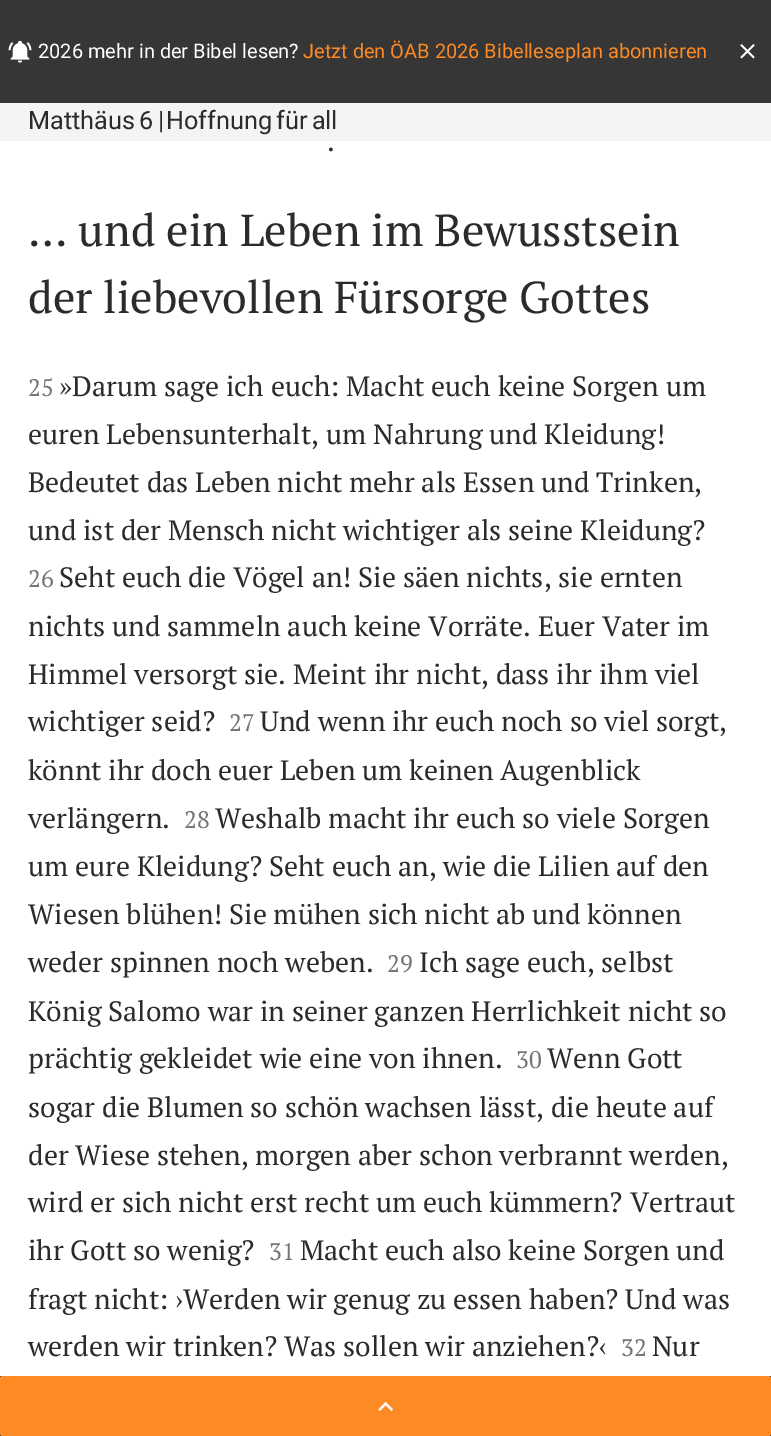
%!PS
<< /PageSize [771 1436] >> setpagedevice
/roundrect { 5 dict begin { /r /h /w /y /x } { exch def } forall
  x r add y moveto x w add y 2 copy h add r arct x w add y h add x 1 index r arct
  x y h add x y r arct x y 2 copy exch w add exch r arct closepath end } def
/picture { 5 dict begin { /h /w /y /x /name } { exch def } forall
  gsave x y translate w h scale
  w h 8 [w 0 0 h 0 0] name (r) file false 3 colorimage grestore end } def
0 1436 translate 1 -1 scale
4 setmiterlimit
1 setgray
0 0 771 1436 rectfill
0.212 setgray
0 0 771 103 rectfill
(img1.rgb) 8 40 24 23 picture
/Roboto-Regular [20 0 0 -20 0 0] selectfont
1 setgray
38 58 moveto (2026 mehr in der Bibel lesen?) show
0.992 0.541 0.141 setrgbcolor
303 58 moveto (Jetzt den ÖAB 2026 Bibelleseplan abonnieren) show
(img2.rgb) 740 44 15 15 picture
0.957 setgray
0 103 771 38 rectfill
/Roboto-Regular [25.25 0 0 -25.25 0 0] selectfont
0.169 setgray
28 129 moveto -2 0 32 (Matthäus 6 |) widthshow
166 129 moveto -2 0 32 (Hoffnung für all) widthshow
/PTSerif-Regular [28 0 0 -28 0 0] selectfont
327 151 moveto (.) show
/PTSerif-Regular [44.75 0 0 -44.75 0 0] selectfont
28 246 moveto (… und ein Leben im Bewusstsein) show
28 313 moveto (der liebevollen Fürsorge Gottes) show
/PTSerif-Regular [24 0 0 -24 0 0] selectfont
0.459 setgray
28 396 moveto (25) show
/PTSerif-Regular [28 0 0 -28 0 0] selectfont
0.169 setgray
59 396 moveto (»Darum sage ich euch: Macht euch keine Sorgen um) show
28 444 moveto (euren Lebensunterhalt, um Nahrung und Kleidung!) show
28 492 moveto (Bedeutet das Leben nicht mehr als Essen und Trinken,) show
28 540 moveto (und ist der Mensch nicht wichtiger als seine Kleidung?) show
/PTSerif-Regular [24 0 0 -24 0 0] selectfont
0.459 setgray
28 587 moveto (26) show
/PTSerif-Regular [28 0 0 -28 0 0] selectfont
0.169 setgray
59 587 moveto (Seht euch die Vögel an! Sie säen nichts, sie ernten) show
28 636 moveto (nichts und sammeln auch keine Vorräte. Euer Vater im) show
28 684 moveto (Himmel versorgt sie. Meint ihr nicht, dass ihr ihm viel) show
28 731 moveto (wichtiger seid?) show
/PTSerif-Regular [24 0 0 -24 0 0] selectfont
0.459 setgray
229 731 moveto (27) show
/PTSerif-Regular [28 0 0 -28 0 0] selectfont
0.169 setgray
260 731 moveto (Und wenn ihr euch noch so viel sorgt,) show
28 780 moveto (könnt ihr doch euer Leben um keinen Augenblick) show
28 828 moveto (verlängern.) show
/PTSerif-Regular [24 0 0 -24 0 0] selectfont
0.459 setgray
184 828 moveto (28) show
/PTSerif-Regular [28 0 0 -28 0 0] selectfont
0.169 setgray
215 828 moveto (Weshalb macht ihr euch so viele Sorgen) show
28 876 moveto (um eure Kleidung? Seht euch an, wie die Lilien auf den) show
28 924 moveto (Wiesen blühen! Sie mühen sich nicht ab und können) show
28 972 moveto (weder spinnen noch weben.) show
/PTSerif-Regular [24 0 0 -24 0 0] selectfont
0.459 setgray
387 972 moveto (29) show
/PTSerif-Regular [28 0 0 -28 0 0] selectfont
0.169 setgray
419 972 moveto (Ich sage euch, selbst) show
28 1021 moveto (König Salomo war in seiner ganzen Herrlichkeit nicht so) show
28 1068 moveto (prächtig gekleidet wie eine von ihnen.) show
/PTSerif-Regular [24 0 0 -24 0 0] selectfont
0.459 setgray
516 1068 moveto (30) show
/PTSerif-Regular [28 0 0 -28 0 0] selectfont
0.169 setgray
547 1068 moveto (Wenn Gott) show
28 1117 moveto (sogar die Blumen so schön wachsen lässt, die heute auf) show
28 1165 moveto (der Wiese stehen, morgen aber schon verbrannt werden,) show
28 1212 moveto (wird er sich nicht erst recht um euch kümmern? Vertraut) show
28 1260 moveto (ihr Gott so wenig?) show
/PTSerif-Regular [24 0 0 -24 0 0] selectfont
0.459 setgray
269 1260 moveto (31) show
/PTSerif-Regular [28 0 0 -28 0 0] selectfont
0.169 setgray
300 1260 moveto (Macht euch also keine Sorgen und) show
28 1309 moveto (fragt nicht: ›Werden wir genug zu essen haben? Und was) show
28 1356 moveto (werden wir trinken? Was sollen wir anziehen?‹) show
/PTSerif-Regular [24 0 0 -24 0 0] selectfont
0.459 setgray
621 1356 moveto (32) show
/PTSerif-Regular [28 0 0 -28 0 0] selectfont
0.169 setgray
652 1356 moveto (Nur) show
0.212 setgray
0 1376 771 60 rectfill
0.992 0.541 0.141 setrgbcolor
0 1376 771 60 2.5 roundrect fill
(img3.rgb) 378 1402 15 9 picture
showpage
